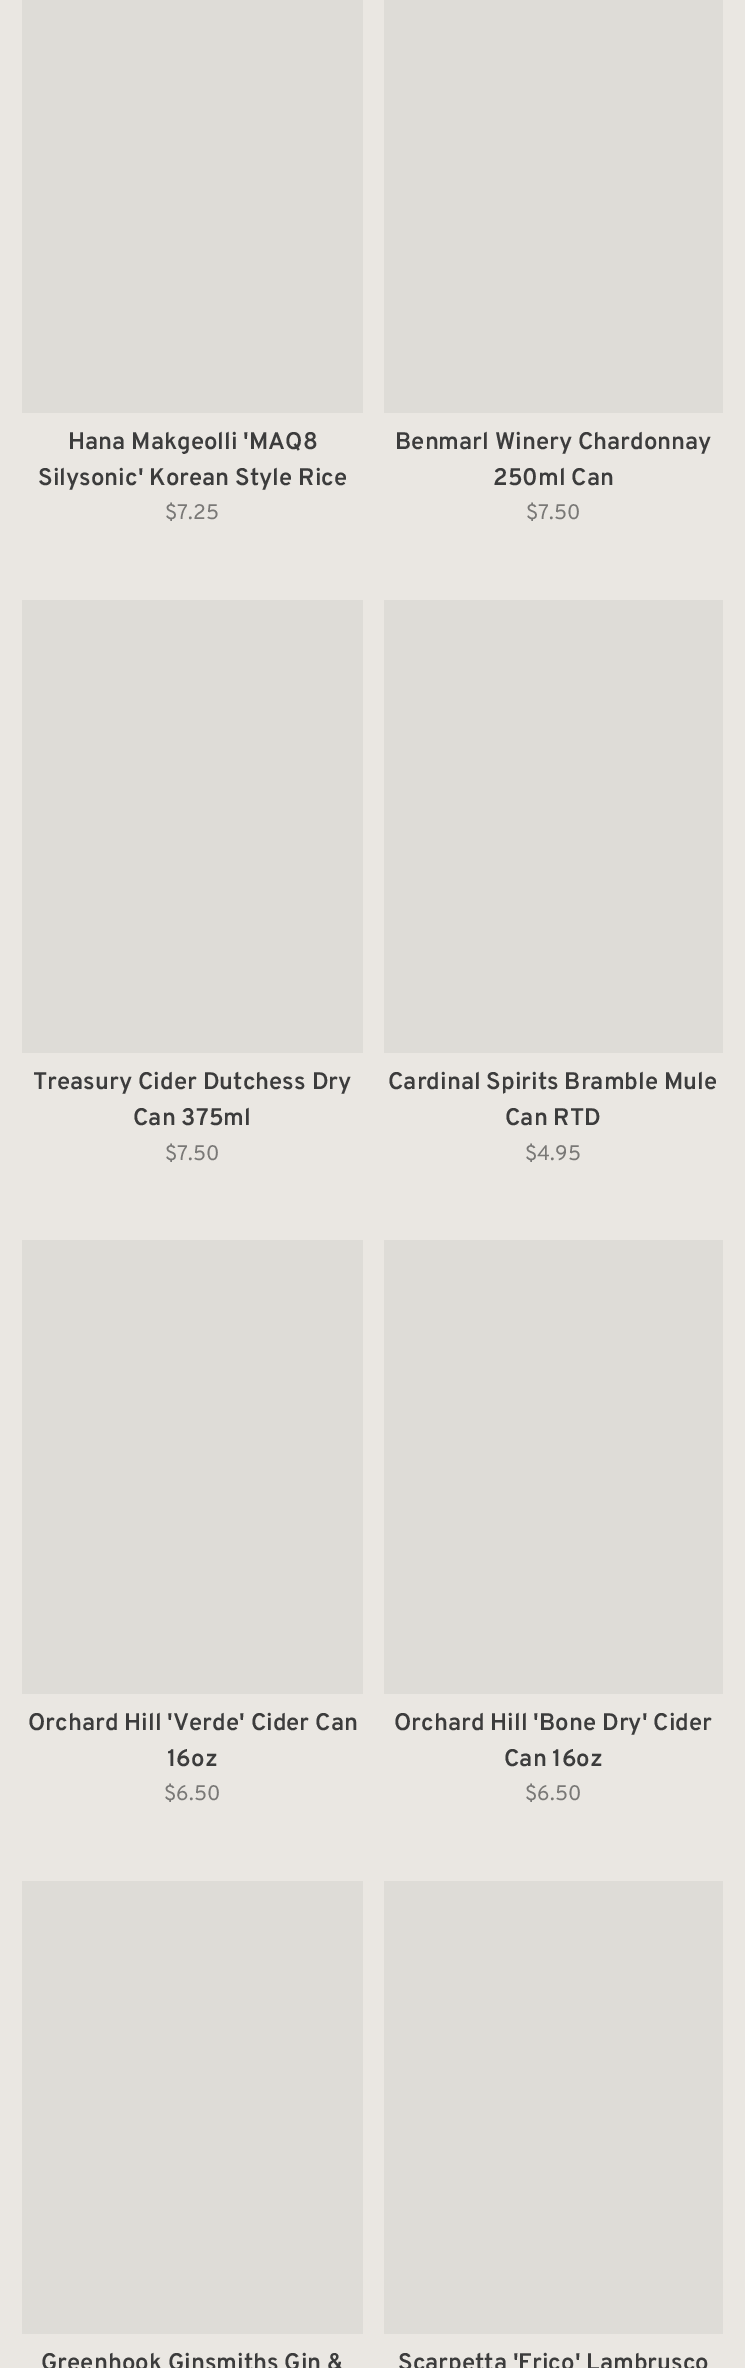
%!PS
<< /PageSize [745 2368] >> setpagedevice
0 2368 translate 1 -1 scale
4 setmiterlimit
0.918 0.906 0.886 setrgbcolor
0 0 745 2368 rectfill
0.871 0.863 0.843 setrgbcolor
22 0 341 413 rectfill
/Overpass-SemiBold [24 0 0 -24 0 0] selectfont
0.235 setgray
68 449 moveto (Hana Makgeolli 'MAQ8) show
38 485 moveto (Silysonic' Korean Style Rice) show
/Overpass-Regular [21 0 0 -21 0 0] selectfont
0.475 0.471 0.463 setrgbcolor
165 519 moveto ($7.25) show
0.871 0.863 0.843 setrgbcolor
384 0 339 413 rectfill
/Overpass-SemiBold [24 0 0 -24 0 0] selectfont
0.235 setgray
395 449 moveto (Benmarl Winery Chardonnay) show
493 485 moveto (250ml Can) show
/Overpass-Regular [21 0 0 -21 0 0] selectfont
0.475 0.471 0.463 setrgbcolor
526 519 moveto ($7.50) show
0.871 0.863 0.843 setrgbcolor
22 600 341 453 rectfill
/Overpass-SemiBold [24 0 0 -24 0 0] selectfont
0.235 setgray
33 1089 moveto (Treasury Cider Dutchess Dry) show
133 1125 moveto (Can 375ml) show
/Overpass-Regular [21 0 0 -21 0 0] selectfont
0.475 0.471 0.463 setrgbcolor
165 1160 moveto ($7.50) show
0.871 0.863 0.843 setrgbcolor
384 600 339 453 rectfill
/Overpass-SemiBold [24 0 0 -24 0 0] selectfont
0.235 setgray
388 1089 moveto (Cardinal Spirits Bramble Mule) show
505 1125 moveto (Can RTD) show
/Overpass-Regular [21 0 0 -21 0 0] selectfont
0.475 0.471 0.463 setrgbcolor
525 1160 moveto ($4.95) show
0.871 0.863 0.843 setrgbcolor
22 1240 341 454 rectfill
/Overpass-SemiBold [24 0 0 -24 0 0] selectfont
0.235 setgray
28 1730 moveto (Orchard Hill 'Verde' Cider Can) show
167 1766 moveto (16oz) show
/Overpass-Regular [21 0 0 -21 0 0] selectfont
0.475 0.471 0.463 setrgbcolor
164 1800 moveto ($6.50) show
0.871 0.863 0.843 setrgbcolor
384 1240 339 454 rectfill
/Overpass-SemiBold [24 0 0 -24 0 0] selectfont
0.235 setgray
394 1730 moveto (Orchard Hill 'Bone Dry' Cider) show
504 1766 moveto (Can 16oz) show
/Overpass-Regular [21 0 0 -21 0 0] selectfont
0.475 0.471 0.463 setrgbcolor
525 1800 moveto ($6.50) show
0.871 0.863 0.843 setrgbcolor
22 1881 341 453 rectfill
/Overpass-SemiBold [24 0 0 -24 0 0] selectfont
0.235 setgray
41 2370 moveto (Greenhook Ginsmiths Gin &) show
0.871 0.863 0.843 setrgbcolor
384 1881 339 453 rectfill
0.235 setgray
398 2370 moveto (Scarpetta 'Frico' Lambrusco) show
showpage
